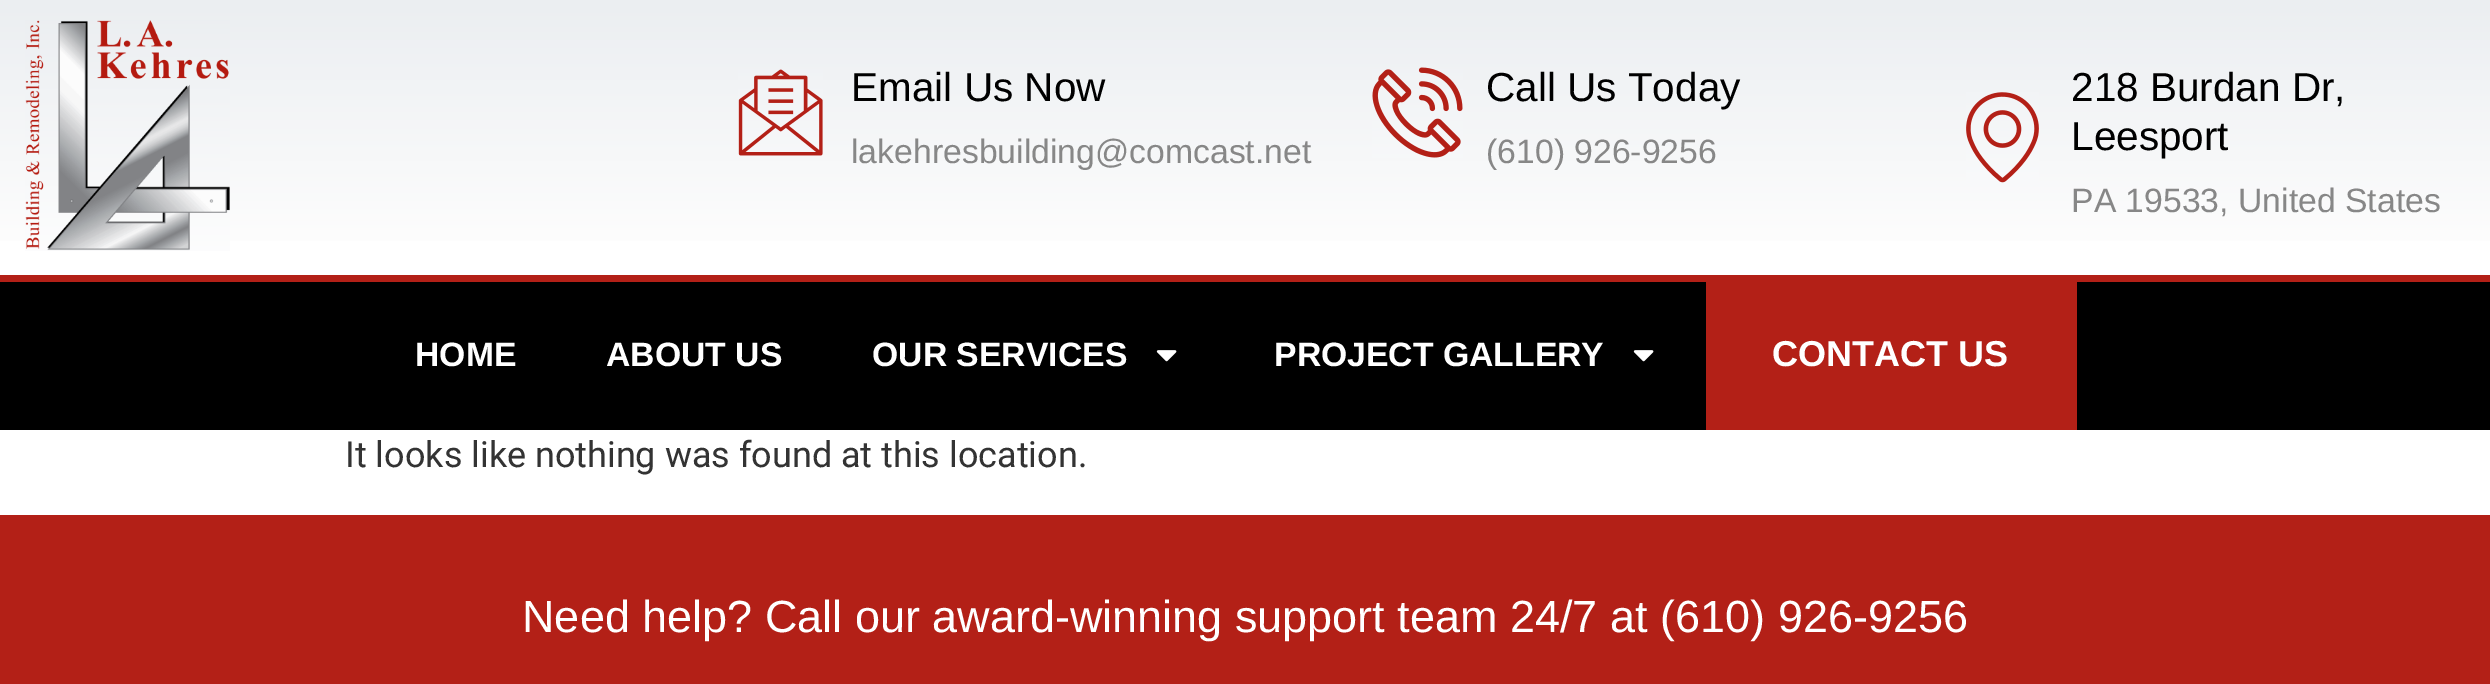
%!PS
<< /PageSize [2490 684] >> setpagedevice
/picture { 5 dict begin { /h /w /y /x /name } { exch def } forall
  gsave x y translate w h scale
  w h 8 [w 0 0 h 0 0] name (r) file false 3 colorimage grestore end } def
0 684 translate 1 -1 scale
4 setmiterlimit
1 setgray
0 0 2490 684 rectfill
gsave newpath 0 0 moveto 2490 0 lineto 2490 241 lineto 0 241 lineto closepath clip newpath
<< /ShadingType 2 /ColorSpace /DeviceRGB /Coords [1245 0 1245 275] /Extend [true true] /Function << /FunctionType 2 /Domain [0 1] /C0 [0.922 0.933 0.945] /C1 [1 1 1] /N 1 >> >> shfill grestore
(img1.rgb) 25 20 205 231 picture
(img2.rgb) 738 69 85 87 picture
/LiberationSans-Regular [40.5 0 0 -40.5 0 0] selectfont
0 setgray
851 101 moveto (Email Us Now) show
/LiberationSans-Regular [33.75 0 0 -33.75 0 0] selectfont
0.529 setgray
851 163 moveto (lakehresbuilding@comcast.net) show
(img3.rgb) 1372 67 91 91 picture
/LiberationSans-Regular [40.5 0 0 -40.5 0 0] selectfont
0 setgray
1486 101 moveto (Call Us Today) show
/LiberationSans-Regular [33.75 0 0 -33.75 0 0] selectfont
0.529 setgray
1486 163 moveto (\(610\) 926-9256) show
(img4.rgb) 1966 92 73 91 picture
/LiberationSans-Regular [40.5 0 0 -40.5 0 0] selectfont
0 setgray
2071 101 moveto (218 Burdan Dr,) show
2071 150 moveto (Leesport) show
/LiberationSans-Regular [33.75 0 0 -33.75 0 0] selectfont
0.529 setgray
2071 212 moveto (PA 19533, United States) show
0 setgray
0 282 2490 148 rectfill
0.702 0.125 0.09 setrgbcolor
0 275 2490 7 rectfill
/LiberationSans-Bold [33.75 0 0 -33.75 0 0] selectfont
1 setgray
415 366 moveto (HOME) show
606 366 moveto (ABOUT US) show
872 366 moveto (OUR SERVICES) show
(img5.rgb) 1156 350 21 12 picture
1274 366 moveto (PROJECT GALLERY) show
(img5.rgb) 1633 350 21 12 picture
0.702 0.125 0.09 setrgbcolor
1706 282 371 148 rectfill
/LiberationSans-Bold [36 0 0 -36 0 0] selectfont
1 setgray
1772 366 moveto (CONTACT US) show
/Roboto-Regular [36 0 0 -36 0 0] selectfont
0.2 setgray
345 467 moveto (It looks like nothing was found at this location.) show
0.702 0.125 0.09 setrgbcolor
0 515 2490 169 rectfill
/LiberationSans-Regular [45 0 0 -45 0 0] selectfont
1 setgray
522 632 moveto (Need help? Call our award-winning support team 24/7 at \(610\) 926-9256) show
showpage
